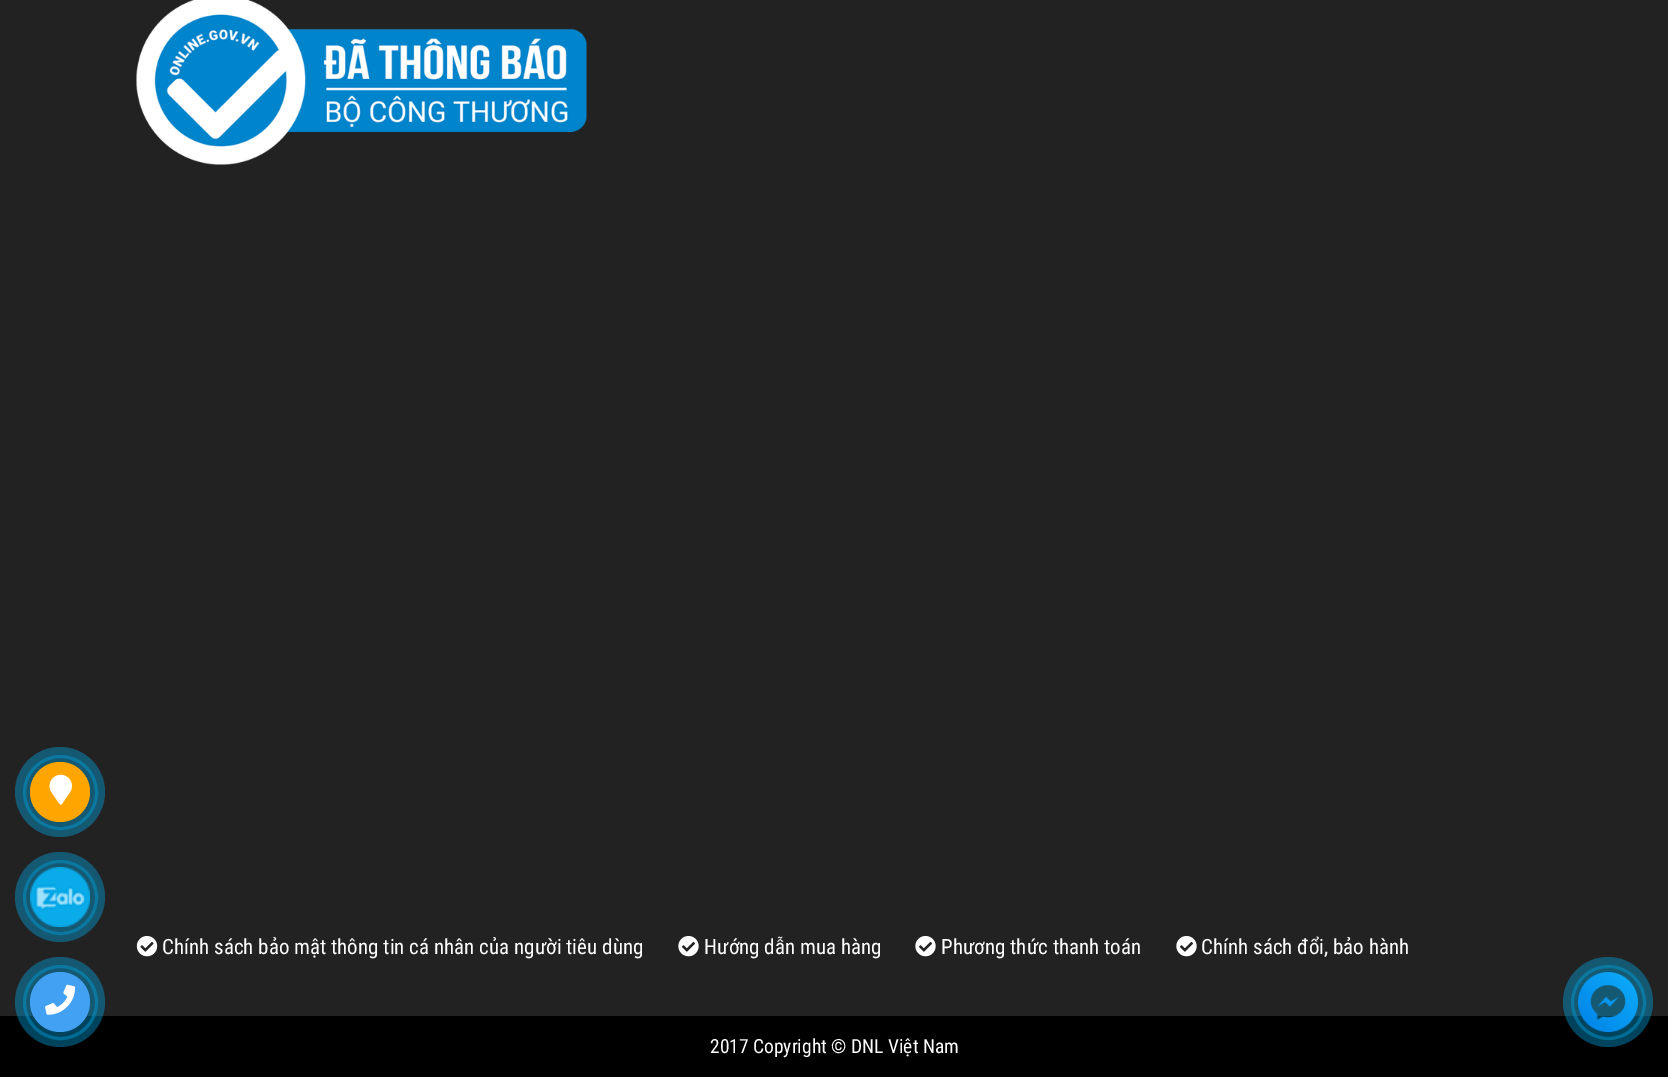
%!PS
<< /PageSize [1668 1077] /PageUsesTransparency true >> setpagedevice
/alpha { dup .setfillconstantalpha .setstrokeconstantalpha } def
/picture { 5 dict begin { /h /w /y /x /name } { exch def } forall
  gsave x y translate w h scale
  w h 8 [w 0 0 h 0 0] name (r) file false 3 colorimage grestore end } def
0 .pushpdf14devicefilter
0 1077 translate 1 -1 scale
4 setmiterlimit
0.133 setgray
0 0 1668 1077 rectfill
0.067 0.337 0.431 setrgbcolor
3 setlinewidth
newpath 60.5 792.5 36 0 360 arc closepath stroke
0.38 alpha
0 0.686 0.949 setrgbcolor
newpath 60 792 45 0 360 arc closepath fill
1 alpha
1 0.647 0 setrgbcolor
newpath 60 792 30 0 360 arc closepath fill
(img1.rgb) 49 774 23 31 picture
(img2.rgb) 30 867 60 60 picture
0.067 0.337 0.431 setrgbcolor
newpath 60.5 897.5 36 0 360 arc closepath stroke
0.38 alpha
0 0.686 0.949 setrgbcolor
newpath 60 897 45 0 360 arc closepath fill
1 alpha
0 setgray
0 1016 1668 61 rectfill
0.5 alpha
0 0.537 0.725 setrgbcolor
newpath 60.5 1002.5 36 0 360 arc closepath stroke
0.38 alpha
0 0.686 0.949 setrgbcolor
newpath 60 1002 45 0 360 arc closepath fill
1 alpha
0.263 0.631 0.953 setrgbcolor
newpath 60 1002 30 0 360 arc closepath fill
(img3.rgb) 45 984 31 31 picture
(img4.rgb) 136 0 451 165 picture
(img5.rgb) 136 936 22 21 picture
/RobotoCondensed-Regular [21 0 0 -21 0 0] selectfont
1 setgray
162 954 moveto (Chính sách bảo mật thông tin cá nhân của người tiêu dùng) show
(img6.rgb) 678 936 21 21 picture
704 954 moveto (Hướng dẫn mua hàng) show
(img6.rgb) 915 936 21 21 picture
941 954 moveto (Phương thức thanh toán) show
(img6.rgb) 1176 936 21 21 picture
1201 954 moveto (Chính sách đổi, bảo hành) show
/RobotoCondensed-Regular [19.5 0 0 -19.5 0 0] selectfont
710 1053 moveto (2017 Copyright © DNL Việt Nam) show
(img7.rgb) 1578 972 60 60 picture
0.5 alpha
0 0.537 0.725 setrgbcolor
newpath 1608.5 1002.5 36 0 360 arc closepath stroke
0.38 alpha
0 0.686 0.949 setrgbcolor
newpath 1608 1002 45 0 360 arc closepath fill
.poppdf14devicefilter showpage
